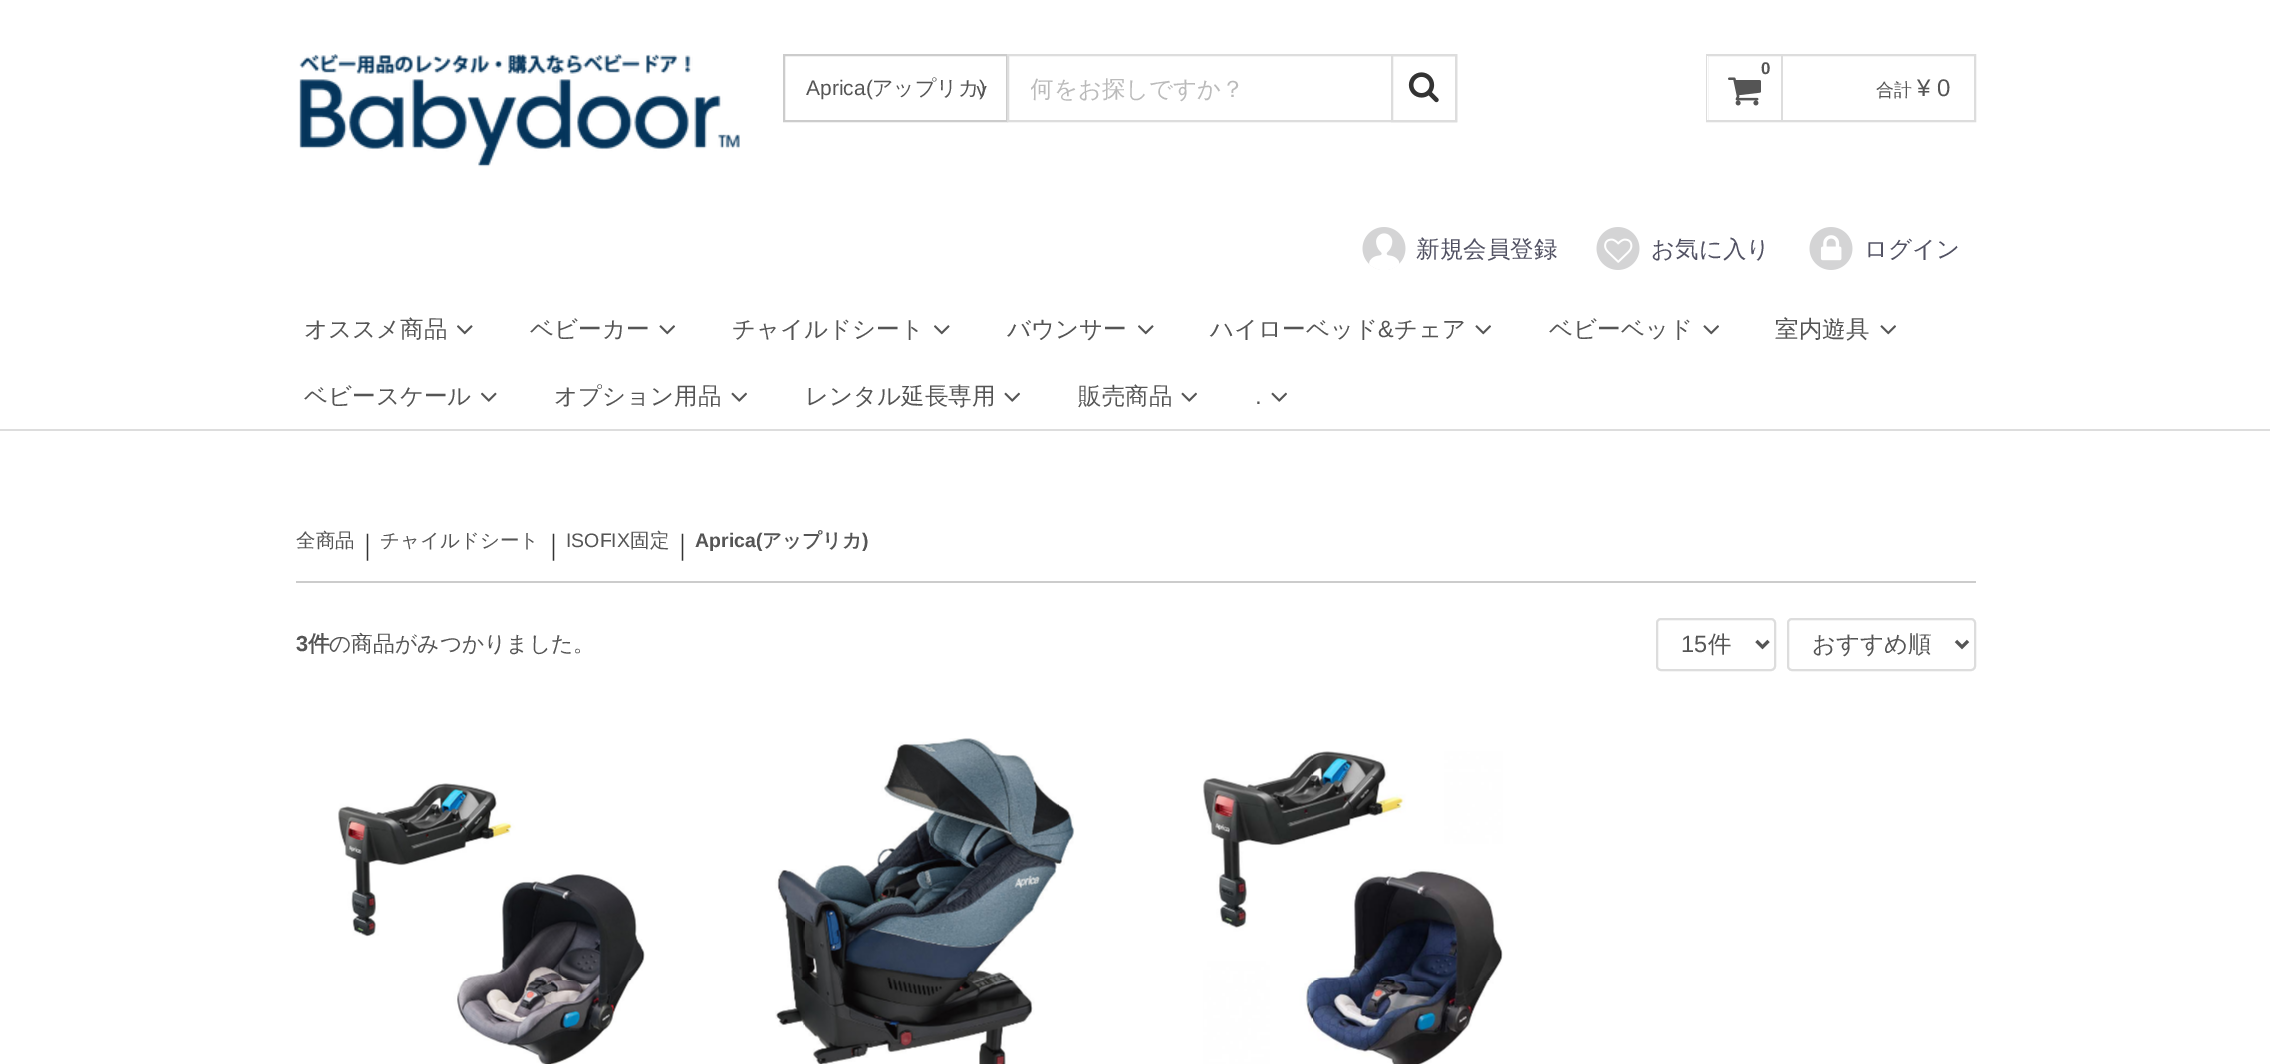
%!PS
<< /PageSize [2270 1064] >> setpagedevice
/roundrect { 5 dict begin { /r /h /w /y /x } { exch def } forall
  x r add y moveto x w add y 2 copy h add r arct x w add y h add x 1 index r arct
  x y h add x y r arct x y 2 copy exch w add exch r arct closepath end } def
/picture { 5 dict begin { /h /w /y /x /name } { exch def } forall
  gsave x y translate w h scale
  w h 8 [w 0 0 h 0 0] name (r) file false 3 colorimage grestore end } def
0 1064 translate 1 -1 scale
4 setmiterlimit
1 setgray
0 0 2270 1064 rectfill
(img1.rgb) 299 54 441 113 picture
0.8 setgray
2 setlinewidth
784 55 223 66 rectstroke
/LiberationSans-Regular [21 0 0 -21 0 0] selectfont
0.333 setgray
806 95 moveto (Aprica\() show
/WenQuanYiZenHei-Medium [21 0 0 -21 0 0] selectfont
872 95 moveto (アップリカ) show
/LiberationSans-Regular [21 0 0 -21 0 0] selectfont
979 95 moveto (\)) show
/DejaVuSansMono-Regular [21 0 0 -21 0 0] selectfont
gsave 975 85 translate 90 rotate 0 0 moveto (>) show grestore
0.867 setgray
1008 55 448 66 rectstroke
gsave
1031 75 343 32 rectclip
/WenQuanYiZenHei-Medium [23.5 0 0 -23.5 0 0] selectfont
0.733 setgray
1030 97 moveto (何をお探しですか？) show
grestore
1392 55 64 66 rectstroke
(img2.rgb) 1408 72 31 31 picture
1707 55 268 66 rectstroke
1 setgray
1707 56 1 64 rectfill
0.867 setgray
1781 56 2 64 rectfill
/LiberationSans-Bold [17 0 0 -17 0 0] selectfont
0.333 setgray
1761 74 moveto (0) show
(img3.rgb) 1728 77 33 29 picture
/WenQuanYiZenHei-Medium [18 0 0 -18 0 0] selectfont
1876 96 moveto (合計) show
/LiberationSans-Regular [24 0 0 -24 0 0] selectfont
1917 96 moveto (¥ 0) show
(img4.rgb) 1362 227 44 43 picture
/WenQuanYiZenHei-Medium [23.5 0 0 -23.5 0 0] selectfont
0.322 0.322 0.388 setrgbcolor
1416 257 moveto (新規会員登録) show
(img5.rgb) 1596 227 44 43 picture
1651 257 moveto (お気に入り) show
(img6.rgb) 1809 227 44 43 picture
1864 257 moveto (ログイン) show
0.867 setgray
0 429 2270 2 rectfill
0.333 setgray
304 337 moveto (オススメ商品) show
(img7.rgb) 457 325 16 10 picture
530 337 moveto (ベビーカー) show
(img8.rgb) 659 325 16 10 picture
732 337 moveto (チャイルドシート) show
(img7.rgb) 934 325 16 10 picture
1007 337 moveto (バウンサー) show
(img7.rgb) 1138 325 16 10 picture
1210 337 moveto (ハイローベッド) show
/LiberationSans-Regular [23.5 0 0 -23.5 0 0] selectfont
1378 337 moveto (&) show
/WenQuanYiZenHei-Medium [23.5 0 0 -23.5 0 0] selectfont
1394 337 moveto (チェア) show
(img8.rgb) 1475 325 16 10 picture
1549 337 moveto (ベビーベッド) show
(img8.rgb) 1703 325 16 10 picture
1775 337 moveto (室内遊具) show
(img8.rgb) 1880 325 16 10 picture
304 404 moveto (ベビースケール) show
(img9.rgb) 481 392 16 10 picture
554 404 moveto (オプション用品) show
(img10.rgb) 731 392 16 10 picture
805 404 moveto (レンタル延長専用) show
(img10.rgb) 1004 392 16 10 picture
1078 404 moveto (販売商品) show
(img10.rgb) 1181 392 16 10 picture
(img10.rgb) 1271 392 16 10 picture
/LiberationSans-Regular [23.5 0 0 -23.5 0 0] selectfont
1255 404 moveto (.) show
0.8 setgray
296 581 1680 2 rectfill
/WenQuanYiZenHei-Medium [19.5 0 0 -19.5 0 0] selectfont
0.333 setgray
296 547 moveto (全商品) show
/WenQuanYiZenHei-Medium [27 0 0 -27 0 0] selectfont
0.2 setgray
354 554 moveto (｜) show
/WenQuanYiZenHei-Medium [19.5 0 0 -19.5 0 0] selectfont
0.333 setgray
380 547 moveto (チャイルドシート) show
/WenQuanYiZenHei-Medium [27 0 0 -27 0 0] selectfont
0.2 setgray
540 554 moveto (｜) show
/LiberationSans-Regular [19.5 0 0 -19.5 0 0] selectfont
0.333 setgray
566 547 moveto (ISOFIX) show
/WenQuanYiZenHei-Medium [19.5 0 0 -19.5 0 0] selectfont
630 547 moveto (固定) show
/WenQuanYiZenHei-Medium [27 0 0 -27 0 0] selectfont
0.2 setgray
669 554 moveto (｜) show
/LiberationSans-Bold [19.5 0 0 -19.5 0 0] selectfont
0.333 setgray
695 547 moveto (Aprica\() show
/WenQuanYiZenHei-Bold [19.5 0 0 -19.5 0 0] selectfont
762 547 moveto (アップリカ) show
/LiberationSans-Bold [19.5 0 0 -19.5 0 0] selectfont
862 547 moveto (\)) show
/LiberationSans-Bold [21.8 0 0 -21.8 0 0] selectfont
296 651 moveto (3) show
/WenQuanYiZenHei-Bold [21.8 0 0 -21.8 0 0] selectfont
308 651 moveto (件) show
/WenQuanYiZenHei-Medium [21.8 0 0 -21.8 0 0] selectfont
329 651 moveto (の商品がみつかりました。) show
0.867 setgray
1657 619 118 51 4 roundrect stroke
0.333 setgray
3 setlinewidth
newpath 1756.5 641 moveto 1762.5 647 lineto 1768.5 641 lineto stroke
/LiberationSans-Regular [23.5 0 0 -23.5 0 0] selectfont
1681 652 moveto (15) show
/WenQuanYiZenHei-Medium [23.5 0 0 -23.5 0 0] selectfont
1708 652 moveto (件) show
0.867 setgray
2 setlinewidth
1788 619 187 51 4 roundrect stroke
0.333 setgray
3 setlinewidth
newpath 1956 641 moveto 1962 647 lineto 1968 641 lineto stroke
1812 652 moveto (おすすめ順) show
(img11.rgb) 338 783 307 281 picture
(img12.rgb) 775 738 300 326 picture
(img13.rgb) 1203 751 300 313 picture
showpage
